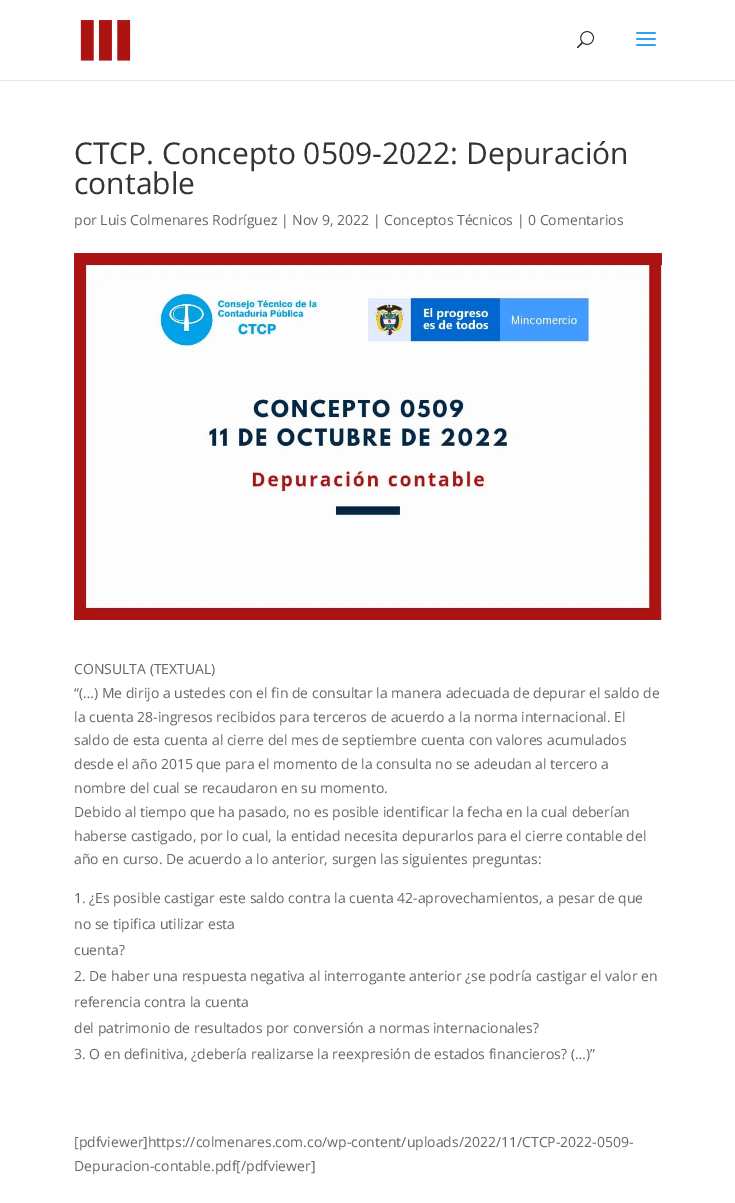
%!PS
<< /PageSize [735 1203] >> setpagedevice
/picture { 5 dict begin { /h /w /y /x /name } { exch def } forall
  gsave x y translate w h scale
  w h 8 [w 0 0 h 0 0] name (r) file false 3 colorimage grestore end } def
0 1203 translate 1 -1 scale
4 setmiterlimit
1 setgray
0 0 735 1203 rectfill
0.902 setgray
0 80 735 1 rectfill
(img1.rgb) 80 20 51 41 picture
(img2.rgb) 577 31 17 18 picture
(img3.rgb) 636 32 20 14 picture
/OpenSans-Regular [30 0 0 -30 0 0] selectfont
0.2 setgray
74 164 moveto (CTCP. Concepto 0509-2022: Depuración) show
74 194 moveto (contable) show
/OpenSans-Regular [14 0 0 -14 0 0] selectfont
0.4 setgray
74 225 moveto (por Luis Colmenares Rodríguez | Nov 9, 2022 | Conceptos Técnicos | 0 Comentarios) show
(img4.rgb) 74 253 588 367 picture
74 674 moveto (CONSULTA \(TEXTUAL\)) show
74 698 moveto (“\(…\) Me dirijo a ustedes con el fin de consultar la manera adecuada de depurar el saldo de) show
74 722 moveto (la cuenta 28-ingresos recibidos para terceros de acuerdo a la norma internacional. El) show
74 745 moveto (saldo de esta cuenta al cierre del mes de septiembre cuenta con valores acumulados) show
74 769 moveto (desde el año 2015 que para el momento de la consulta no se adeudan al tercero a) show
74 793 moveto (nombre del cual se recaudaron en su momento.) show
74 817 moveto (Debido al tiempo que ha pasado, no es posible identificar la fecha en la cual deberían) show
74 841 moveto (haberse castigado, por lo cual, la entidad necesita depurarlos para el cierre contable del) show
74 864 moveto (año en curso. De acuerdo a lo anterior, surgen las siguientes preguntas:) show
74 903 moveto (1. ¿Es posible castigar este saldo contra la cuenta 42-aprovechamientos, a pesar de que) show
74 929 moveto (no se tipifica utilizar esta) show
74 955 moveto (cuenta?) show
74 981 moveto (2. De haber una respuesta negativa al interrogante anterior ¿se podría castigar el valor en) show
74 1007 moveto (referencia contra la cuenta) show
74 1033 moveto (del patrimonio de resultados por conversión a normas internacionales?) show
74 1059 moveto (3. O en definitiva, ¿debería realizarse la reexpresión de estados financieros? \(…\)”) show
74 1147 moveto ([pdfviewer]https://colmenares.com.co/wp-content/uploads/2022/11/CTCP-2022-0509-) show
74 1171 moveto (Depuracion-contable.pdf[/pdfviewer]) show
showpage
